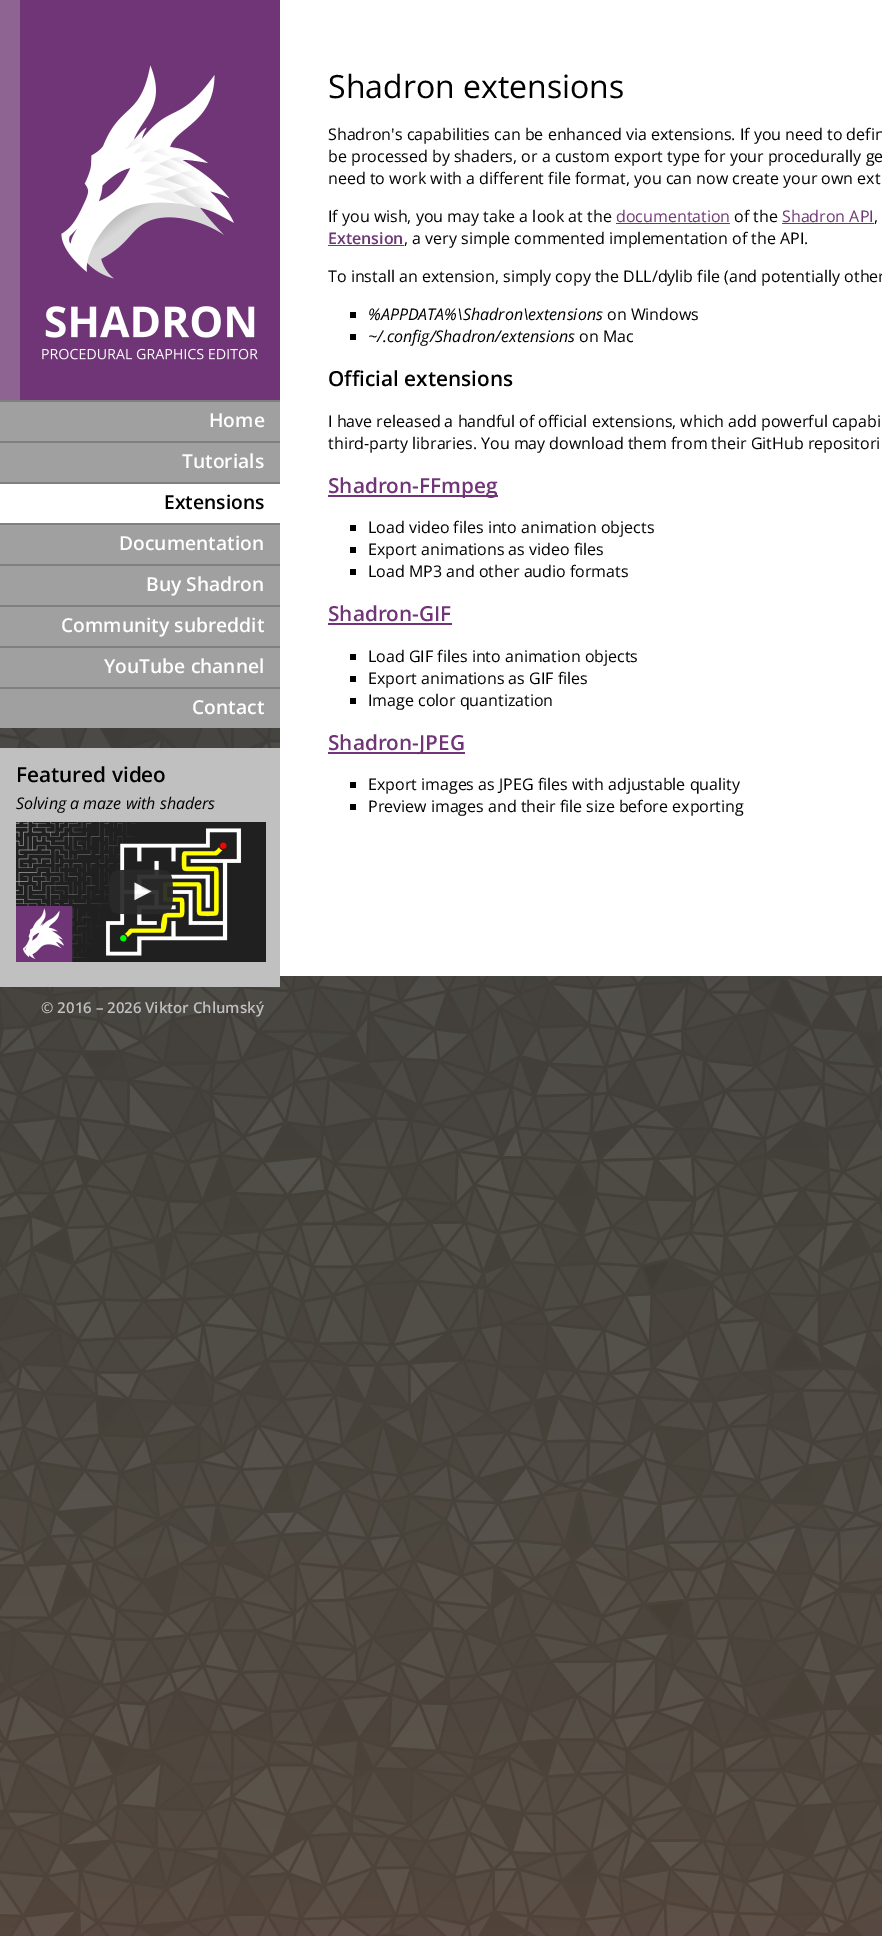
%!PS
<< /PageSize [882 1936] >> setpagedevice
/picture { 5 dict begin { /h /w /y /x /name } { exch def } forall
  gsave x y translate w h scale
  w h 8 [w 0 0 h 0 0] name (r) file false 3 colorimage grestore end } def
0 1936 translate 1 -1 scale
4 setmiterlimit
1 setgray
0 0 882 1936 rectfill
(img1.rgb) 0 728 882 1208 picture
0.439 0.208 0.467 setrgbcolor
20 0 260 400 rectfill
(img2.rgb) 42 65 216 295 picture
0.557 0.396 0.573 setrgbcolor
0 0 20 400 rectfill
0.627 setgray
0 402 280 39 rectfill
0.502 setgray
0 400 280 2 rectfill
/OpenSans-SemiBold [19.25 0 0 -19.25 0 0] selectfont
1 setgray
209 427 moveto (Home) show
0.627 setgray
0 443 280 39 rectfill
0.502 setgray
0 441 280 2 rectfill
1 setgray
182 468 moveto (Tutorials) show
0.502 setgray
0 482 280 2 rectfill
0 setgray
164 509 moveto (Extensions) show
0.627 setgray
0 525 280 39 rectfill
0.502 setgray
0 523 280 2 rectfill
1 setgray
119 550 moveto (Documentation) show
0.627 setgray
0 566 280 39 rectfill
0.502 setgray
0 564 280 2 rectfill
1 setgray
146 591 moveto (Buy Shadron) show
0.627 setgray
0 607 280 39 rectfill
0.502 setgray
0 605 280 2 rectfill
1 setgray
61 632 moveto (Community subreddit) show
0.627 setgray
0 648 280 39 rectfill
0.502 setgray
0 646 280 2 rectfill
1 setgray
104 673 moveto (YouTube channel) show
0.627 setgray
0 689 280 39 rectfill
0.502 setgray
0 687 280 2 rectfill
1 setgray
192 714 moveto (Contact) show
0.753 setgray
0 748 280 239 rectfill
/OpenSans-SemiBold [20.75 0 0 -20.75 0 0] selectfont
0 setgray
16 782 moveto (Featured video) show
/OpenSans-Italic [16 0 0 -16 0 0] selectfont
16 809 moveto (Solving a maze with shaders) show
(img3.rgb) 16 822 250 140 picture
/OpenSans-SemiBold [15 0 0 -15 0 0] selectfont
0.753 setgray
41 1013 moveto (© 2016 – 2026 Viktor Chlumský) show
1 setgray
280 728 602 248 rectfill
/OpenSans-Regular [32 0 0 -32 0 0] selectfont
0 setgray
328 98 moveto (Shadron extensions) show
/OpenSans-Regular [16 0 0 -16 0 0] selectfont
328 140 moveto (Shadron's capabilities can be enhanced via extensions. If you need to defin) show
328 162 moveto (be processed by shaders, or a custom export type for your procedurally ge) show
328 184 moveto (need to work with a different file format, you can now create your own ext) show
328 222 moveto (If you wish, you may take a look at the) show
0.439 0.208 0.467 setrgbcolor
616 222 moveto (documentation) show
616 223 114 1 rectfill
0 setgray
734 222 moveto (of the) show
0.439 0.208 0.467 setrgbcolor
782 222 moveto (Shadron API) show
782 223 92 1 rectfill
0 setgray
874 222 moveto (,) show
/OpenSans-SemiBold [16 0 0 -16 0 0] selectfont
0.439 0.208 0.467 setrgbcolor
328 244 moveto (Extension) show
328 245 76 1 rectfill
/OpenSans-Regular [16 0 0 -16 0 0] selectfont
0 setgray
404 244 moveto (, a very simple commented implementation of the API.) show
328 282 moveto (To install an extension, simply copy the DLL/dylib file \(and potentially other) show
350 312 6 6 rectfill
/OpenSans-Italic [16 0 0 -16 0 0] selectfont
368 320 moveto (%APPDATA%\\Shadron\\extensions) show
/OpenSans-Regular [16 0 0 -16 0 0] selectfont
607 320 moveto (on Windows) show
350 334 6 6 rectfill
/OpenSans-Italic [16 0 0 -16 0 0] selectfont
368 342 moveto (~/.config/Shadron/extensions) show
/OpenSans-Regular [16 0 0 -16 0 0] selectfont
579 342 moveto (on Mac) show
/OpenSans-SemiBold [20.75 0 0 -20.75 0 0] selectfont
328 386 moveto (Official extensions) show
/OpenSans-Regular [16 0 0 -16 0 0] selectfont
328 427 moveto (I have released a handful of official extensions, which add powerful capabi) show
328 449 moveto (third-party libraries. You may download them from their GitHub repositori) show
0.439 0.208 0.467 setrgbcolor
328 495 170 2 rectfill
/OpenSans-SemiBold [20.75 0 0 -20.75 0 0] selectfont
328 493 moveto (Shadron-FFmpeg) show
0 setgray
350 525 6 6 rectfill
/OpenSans-Regular [16 0 0 -16 0 0] selectfont
368 533 moveto (Load video files into animation objects) show
350 547 6 6 rectfill
368 555 moveto (Export animations as video files) show
350 569 6 6 rectfill
368 577 moveto (Load MP3 and other audio formats) show
/OpenSans-SemiBold [20.75 0 0 -20.75 0 0] selectfont
0.439 0.208 0.467 setrgbcolor
328 621 moveto (Shadron-GIF) show
328 623 124 2 rectfill
0 setgray
350 654 6 6 rectfill
/OpenSans-Regular [16 0 0 -16 0 0] selectfont
368 662 moveto (Load GIF files into animation objects) show
350 676 6 6 rectfill
368 684 moveto (Export animations as GIF files) show
350 698 6 6 rectfill
368 706 moveto (Image color quantization) show
0.439 0.208 0.467 setrgbcolor
328 752 137 2 rectfill
/OpenSans-SemiBold [20.75 0 0 -20.75 0 0] selectfont
328 750 moveto (Shadron-JPEG) show
0 setgray
350 782 6 6 rectfill
/OpenSans-Regular [16 0 0 -16 0 0] selectfont
368 790 moveto (Export images as JPEG files with adjustable quality) show
350 804 6 6 rectfill
368 812 moveto (Preview images and their file size before exporting) show
showpage
